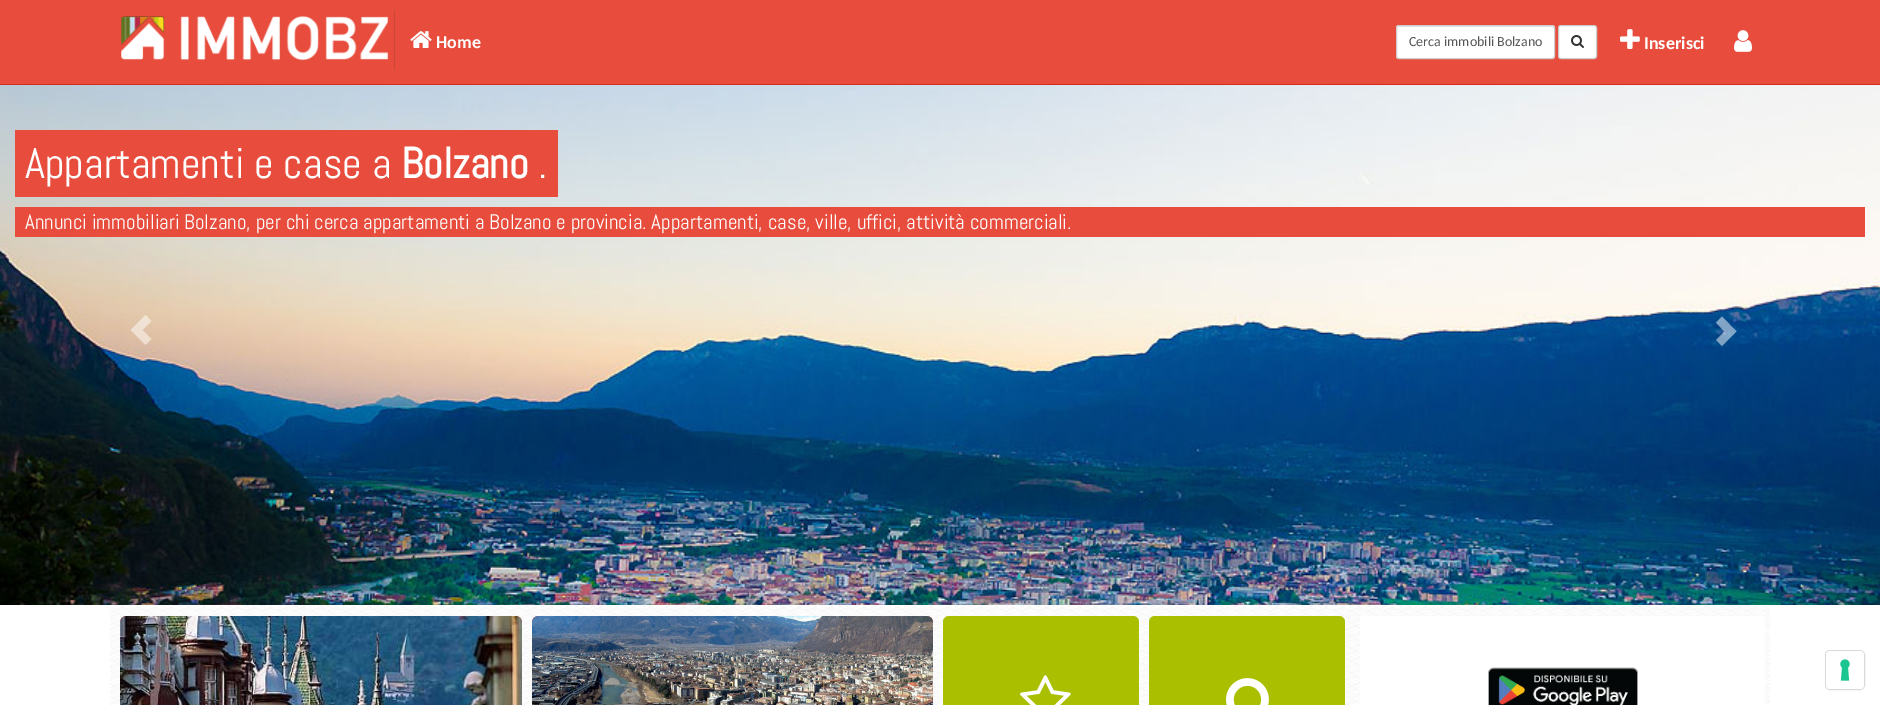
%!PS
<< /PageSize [1880 705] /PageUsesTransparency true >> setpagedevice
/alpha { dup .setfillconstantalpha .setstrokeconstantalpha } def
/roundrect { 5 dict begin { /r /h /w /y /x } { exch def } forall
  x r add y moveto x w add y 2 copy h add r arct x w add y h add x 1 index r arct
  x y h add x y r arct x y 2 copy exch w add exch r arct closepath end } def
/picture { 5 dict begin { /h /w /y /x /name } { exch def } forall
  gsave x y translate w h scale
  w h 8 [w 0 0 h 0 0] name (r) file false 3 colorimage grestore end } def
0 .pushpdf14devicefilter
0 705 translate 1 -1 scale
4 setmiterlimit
1 setgray
0 0 1880 705 rectfill
0.906 0.298 0.235 setrgbcolor
0 0 1880 84 rectfill
0.839 0.173 0.102 setrgbcolor
0 84 1880 1 rectfill
(img1.rgb) 121 16 268 45 picture
0.796 0.278 0.224 setrgbcolor
394 10 1 60 rectfill
(img2.rgb) 410 31 22 17 picture
/Carlito-Bold [18 0 0 -18 0 0] selectfont
1 setgray
436 48 moveto (Home) show
1396 25 159 34 3 roundrect fill
0.925 setgray
newpath 1399 27 moveto 1552 27 lineto 1553 27 1554 28 1554 29 curveto 1554 28 1554 26 1552 26 curveto 1399 26 lineto 1397 26 1397 28 1397 29 curveto 1397 28 1398 27 1399 27 curveto closepath fill
0.8 setgray
1396.5 25.5 158 33 2.5 roundrect stroke
/Carlito-Regular [14 0 0 -14 0 0] selectfont
0.333 setgray
1409 46 moveto (Cerca immobili Bolzano) show
1 setgray
1558.5 25.5 38 33 2.5 roundrect gsave fill grestore
0.8 setgray
stroke
(img3.rgb) 1571 35 13 13 picture
(img4.rgb) 1620 29 20 20 picture
/Carlito-Bold [18 0 0 -18 0 0] selectfont
1 setgray
1644 49 moveto (Inserisci) show
(img5.rgb) 1734 30 18 22 picture
(img6.rgb) 0 85 1880 520 picture
0.5 alpha
newpath 130.5 330 moveto 145.5 345 lineto 151.5 339 lineto 142.5 330 lineto 151.5 321 lineto 145.5 315 lineto closepath fill
newpath 1716 340 moveto 1724.5 331.5 lineto 1716 322.5 lineto 1722 316.5 lineto 1736.5 331.5 lineto 1722 346 lineto closepath fill
1 alpha
0.906 0.298 0.235 setrgbcolor
15 130 543 67 rectfill
/Abel-Regular [43 0 0 -43 0 0] selectfont
1 setgray
25 178 moveto (Appartamenti e case a) show
/Abel-Bold [43 0 0 -43 0 0] selectfont
401 178 moveto (Bolzano) show
/Abel-Regular [43 0 0 -43 0 0] selectfont
538 178 moveto (.) show
0.906 0.298 0.235 setrgbcolor
15 207 1850 30 rectfill
/Abel-Regular [21 0 0 -21 0 0] selectfont
1 setgray
25 229 moveto (Annunci immobiliari Bolzano, per chi cerca appartamenti a Bolzano e provincia. Appartamenti, case, ville, uffici, attività commerciali.) show
(img7.rgb) 110 606 1660 99 picture
(img8.rgb) 120 616 402 89 picture
(img9.rgb) 532 616 401 89 picture
0.663 0.749 0 setrgbcolor
943 616 196 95 6 roundrect fill
(img10.rgb) 1020 675 51 30 picture
1149 616 196 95 6 roundrect fill
(img11.rgb) 1226 678 43 27 picture
1 setgray
1360 616 405 89 rectfill
(img12.rgb) 1488 667 150 38 picture
0.851 setgray
1825.5 650.5 39 39 4.5 roundrect stroke
1 setgray
1826 651 38 38 4 roundrect fill
(img13.rgb) 1840 659 10 22 picture
.poppdf14devicefilter showpage
